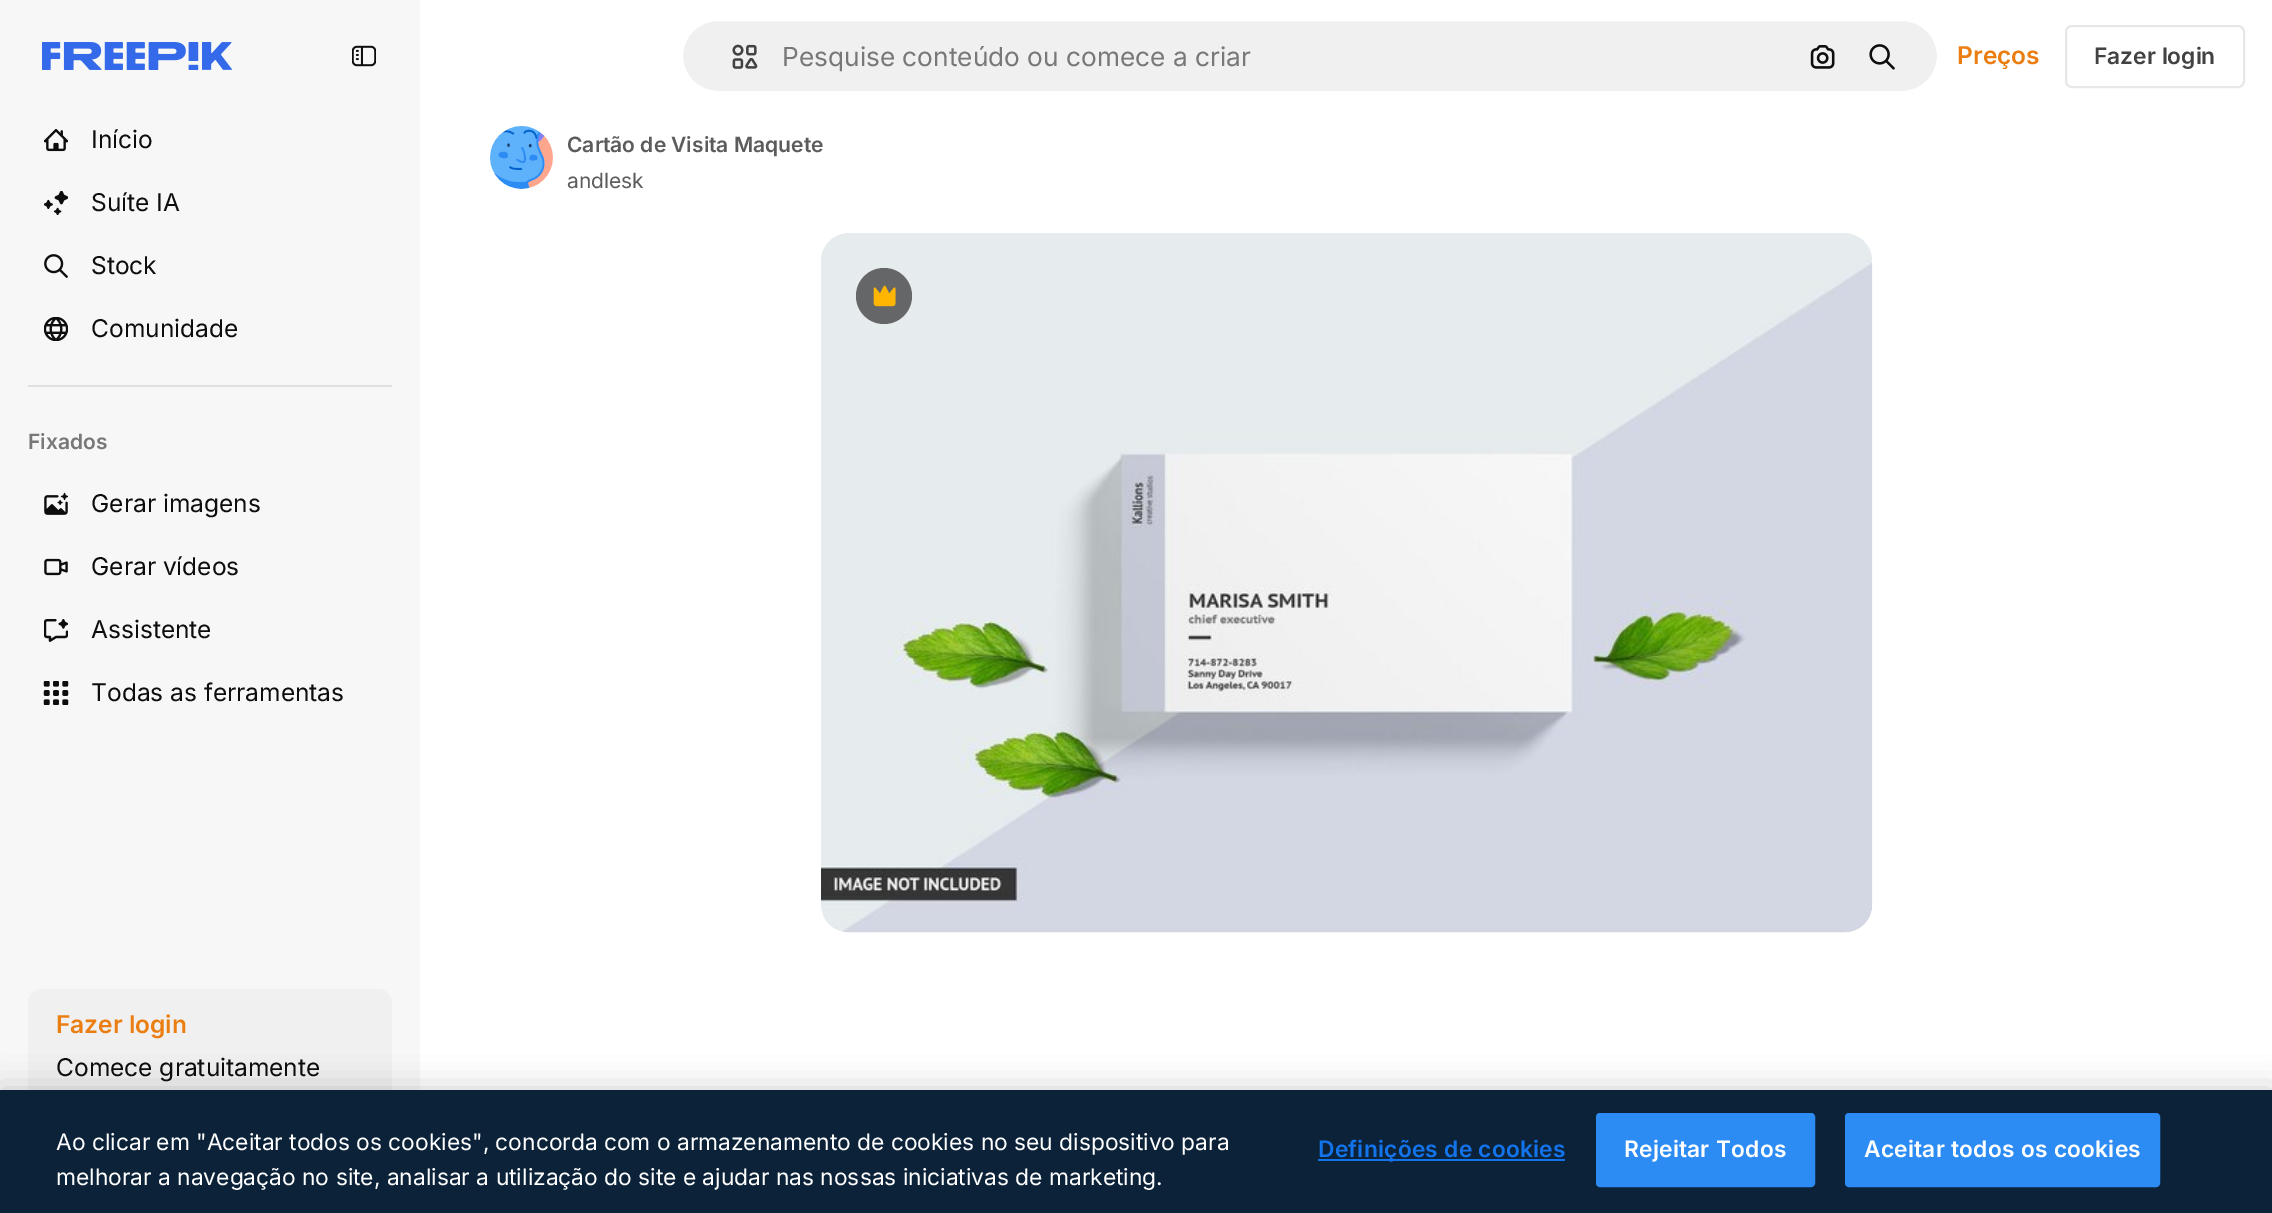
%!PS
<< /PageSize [2272 1213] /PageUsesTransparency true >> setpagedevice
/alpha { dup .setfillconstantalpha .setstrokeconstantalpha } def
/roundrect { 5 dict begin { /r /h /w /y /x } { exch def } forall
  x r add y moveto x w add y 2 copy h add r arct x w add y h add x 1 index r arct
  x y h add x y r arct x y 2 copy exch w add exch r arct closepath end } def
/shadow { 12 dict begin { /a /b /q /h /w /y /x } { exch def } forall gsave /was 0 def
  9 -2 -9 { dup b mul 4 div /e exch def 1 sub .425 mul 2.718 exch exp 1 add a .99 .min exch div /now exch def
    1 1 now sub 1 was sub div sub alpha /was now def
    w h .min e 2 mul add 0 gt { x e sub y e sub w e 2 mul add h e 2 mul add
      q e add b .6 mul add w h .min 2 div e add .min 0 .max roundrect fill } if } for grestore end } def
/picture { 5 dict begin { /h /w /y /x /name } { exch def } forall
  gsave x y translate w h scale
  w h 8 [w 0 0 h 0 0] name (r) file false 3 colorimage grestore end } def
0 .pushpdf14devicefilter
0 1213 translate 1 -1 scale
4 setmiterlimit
1 setgray
0 0 2272 1213 rectfill
0.969 setgray
0 0 420 1090 rectfill
(img1.rgb) 42 42 190 28 picture
(img2.rgb) 352 45 24 22 picture
(img3.rgb) 44 129 24 23 picture
/Inter-Regular [24.5 0 0 -24.5 0 0] selectfont
0.051 setgray
91 148 moveto (Início) show
(img4.rgb) 44 191 24 24 picture
91 211 moveto (Suíte IA) show
(img5.rgb) 44 254 24 24 picture
91 274 moveto (Stock) show
(img6.rgb) 44 317 24 24 picture
91 337 moveto (Comunidade) show
0.878 setgray
28 385 364 2 rectfill
/Inter-SemiBold [21 0 0 -21 0 0] selectfont
0.471 setgray
28 449 moveto (Fixados) show
(img7.rgb) 44 492 24 23 picture
/Inter-Regular [24.5 0 0 -24.5 0 0] selectfont
0.051 setgray
91 512 moveto (Gerar imagens) show
(img8.rgb) 44 558 24 18 picture
91 575 moveto (Gerar vídeos) show
(img9.rgb) 44 619 24 23 picture
91 638 moveto (Assistente) show
(img10.rgb) 43 681 26 24 picture
91 701 moveto (Todas as ferramentas) show
0.941 setgray
28 989 364 114 14 roundrect fill
/Inter-SemiBold [24.5 0 0 -24.5 0 0] selectfont
0.918 0.494 0.067 setrgbcolor
56 1033 moveto (Fazer login) show
/Inter-Regular [24.5 0 0 -24.5 0 0] selectfont
0.051 setgray
56 1076 moveto (Comece gratuitamente) show
0.941 setgray
682 20 1256 72 36 roundrect gsave fill grestore
1 setgray
2 setlinewidth
stroke
(img11.rgb) 732 44 26 25 picture
/Inter-Regular [26.25 0 0 -26.25 0 0] selectfont
0.471 setgray
782 66 moveto (Pesquise conteúdo ou comece a criar) show
(img12.rgb) 1810 45 25 24 picture
(img13.rgb) 1869 44 26 26 picture
/Inter-SemiBold [24.5 0 0 -24.5 0 0] selectfont
0.918 0.494 0.067 setrgbcolor
1957 64 moveto (Preços) show
0.906 setgray
2066 26 178 61 6 roundrect stroke
/Inter-SemiBold [22.75 0 0 -22.75 0 0] selectfont
0.259 setgray
2094 64 moveto (Fazer login) show
(img14.rgb) 490 126 63 63 picture
/Inter-SemiBold [21 0 0 -21 0 0] selectfont
0.361 setgray
567 152 moveto (Cartão de Visita Maquete) show
/Inter-Regular [21 0 0 -21 0 0] selectfont
567 188 moveto (andlesk) show
(img15.rgb) 821 233 1052 700 picture
0.392 0.4 0.404 setrgbcolor
newpath 884 296 28 0 360 arc closepath fill
(img16.rgb) 873 285 23 22 picture
0 setgray
0 1090 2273 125 0 16 0.2 shadow
0.043 0.133 0.224 setrgbcolor
0 1090 2272 123 rectfill
/Inter-Regular [22.75 0 0 -22.75 0 0] selectfont
1 setgray
56 1150 moveto (Ao clicar em "Aceitar todos os cookies", concorda com o armazenamento de cookies no seu dispositivo para) show
56 1185 moveto (melhorar a navegação no site, analisar a utilização do site e ajudar nas nossas iniciativas de marketing.) show
0.071 0.451 0.922 setrgbcolor
1318 1159 247 2 rectfill
/Inter-SemiBold [22.75 0 0 -22.75 0 0] selectfont
1318 1157 moveto 0.25 0 (Definições de cookies) ashow
0.173 0.549 0.957 setrgbcolor
1597 1114 217 72 3 roundrect gsave fill grestore
stroke
1 setgray
1624 1157 moveto 0.25 0 (Rejeitar Todos) ashow
0.173 0.549 0.957 setrgbcolor
1846 1114 313 72 3 roundrect gsave fill grestore
stroke
1 setgray
1864 1157 moveto 0.25 0 (Aceitar todos os cookies) ashow
.poppdf14devicefilter showpage
